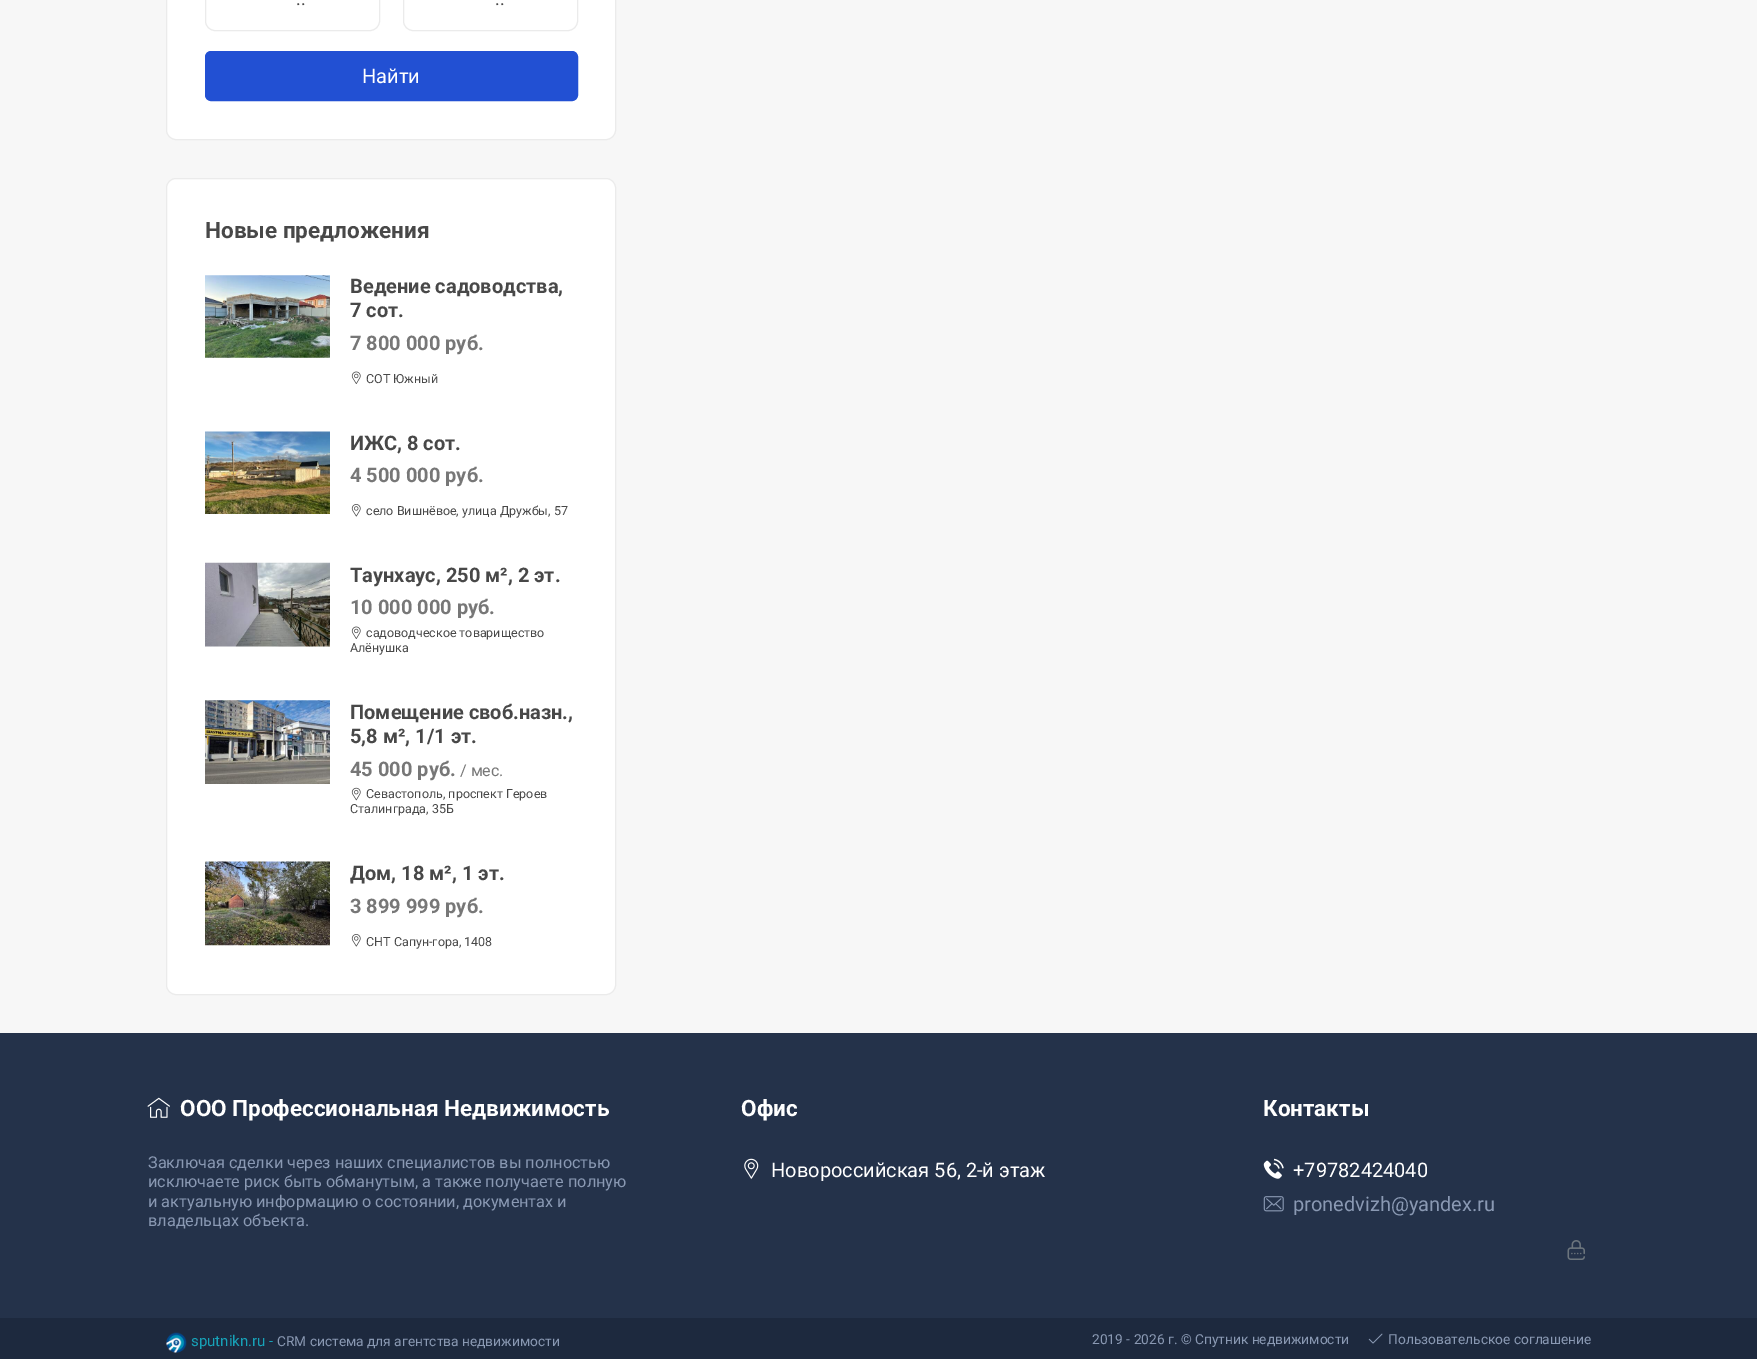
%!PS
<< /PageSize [1757 1359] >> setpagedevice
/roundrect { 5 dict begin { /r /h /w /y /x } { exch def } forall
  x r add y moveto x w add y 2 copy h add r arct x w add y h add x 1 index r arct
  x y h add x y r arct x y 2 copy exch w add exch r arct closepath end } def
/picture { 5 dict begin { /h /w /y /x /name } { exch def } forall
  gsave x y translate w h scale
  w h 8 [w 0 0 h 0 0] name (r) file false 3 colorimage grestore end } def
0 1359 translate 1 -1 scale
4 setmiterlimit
0.141 0.196 0.29 setrgbcolor
0 0 1757 1359 rectfill
0.969 setgray
0 0 1757 1033 rectfill
1 setgray
166.5 -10.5 449 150 9.5 roundrect gsave fill grestore
0.922 setgray
stroke
205.5 -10.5 174 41 9.5 roundrect stroke
/Roboto-Regular [18 0 0 -18 0 0] selectfont
0.282 setgray
296 5 moveto (..) show
0.922 setgray
403.5 -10.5 174 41 9.5 roundrect stroke
0.282 setgray
495 5 moveto (..) show
0.133 0.314 0.827 setrgbcolor
206.5 52.5 370 47 4.5 roundrect gsave fill grestore
3 setlinewidth
stroke
/Roboto-Regular [20 0 0 -20 0 0] selectfont
1 setgray
362 83 moveto (Найти) show
166.5 178.5 449 816 9.5 roundrect gsave fill grestore
0.922 setgray
1 setlinewidth
stroke
/Roboto-Bold [22.5 0 0 -22.5 0 0] selectfont
0.282 setgray
205 238 moveto (Новые предложения) show
(img1.rgb) 205 275 125 83 picture
/Roboto-Bold [20 0 0 -20 0 0] selectfont
350 293 moveto (Ведение садоводства,) show
350 317 moveto (7 сот.) show
0.467 setgray
350 350 moveto (7 800 000 руб.) show
(img2.rgb) 351 371 10 13 picture
/Roboto-Regular [12.5 0 0 -12.5 0 0] selectfont
0.282 setgray
366 383 moveto (СОТ Южный) show
(img3.rgb) 205 431 125 83 picture
/Roboto-Bold [20 0 0 -20 0 0] selectfont
350 450 moveto (ИЖС, 8 сот.) show
0.467 setgray
350 482 moveto (4 500 000 руб.) show
(img4.rgb) 351 504 10 13 picture
/Roboto-Regular [12.5 0 0 -12.5 0 0] selectfont
0.282 setgray
366 515 moveto (село Вишнёвое, улица Дружбы, 57) show
(img5.rgb) 205 562 125 85 picture
/Roboto-Bold [20 0 0 -20 0 0] selectfont
350 582 moveto (Таунхаус, 250 м², 2 эт.) show
0.467 setgray
350 614 moveto (10 000 000 руб.) show
(img2.rgb) 351 626 10 13 picture
/Roboto-Regular [12.5 0 0 -12.5 0 0] selectfont
0.282 setgray
366 637 moveto (садоводческое товарищество) show
350 652 moveto (Алёнушка) show
(img6.rgb) 205 700 125 84 picture
/Roboto-Bold [20 0 0 -20 0 0] selectfont
350 719 moveto (Помещение своб.назн.,) show
350 743 moveto (5,8 м², 1/1 эт.) show
0.467 setgray
350 776 moveto (45 000 руб.) show
/Roboto-Regular [16 0 0 -16 0 0] selectfont
460 776 moveto (/ мес.) show
(img7.rgb) 351 787 10 14 picture
/Roboto-Regular [12.5 0 0 -12.5 0 0] selectfont
0.282 setgray
366 798 moveto (Севастополь, проспект Героев) show
350 813 moveto (Сталинграда, 35Б) show
(img8.rgb) 205 861 125 85 picture
/Roboto-Bold [20 0 0 -20 0 0] selectfont
350 880 moveto (Дом, 18 м², 1 эт.) show
0.467 setgray
350 913 moveto (3 899 999 руб.) show
(img4.rgb) 351 934 10 13 picture
/Roboto-Regular [12.5 0 0 -12.5 0 0] selectfont
0.282 setgray
366 946 moveto (СНТ Сапун-гора, 1408) show
(img9.rgb) 147 1097 23 21 picture
/Roboto-Bold [22.5 0 0 -22.5 0 0] selectfont
1 setgray
180 1116 moveto (ООО Профессиональная Недвижимость) show
/Roboto-Regular [16.25 0 0 -16.25 0 0] selectfont
0.541 0.6 0.702 setrgbcolor
148 1168 moveto (Заключая сделки через наших специалистов вы полностью) show
148 1187 moveto (исключаете риск быть обманутым, а также получаете полную) show
148 1207 moveto (и актуальную информацию о состоянии, документах и) show
148 1226 moveto (владельцах объекта.) show
/Roboto-Bold [22.5 0 0 -22.5 0 0] selectfont
1 setgray
741 1116 moveto (Офис) show
(img10.rgb) 744 1158 15 21 picture
/Roboto-Regular [20 0 0 -20 0 0] selectfont
771 1177 moveto (Новороссийская 56, 2-й этаж) show
/Roboto-Bold [22.5 0 0 -22.5 0 0] selectfont
1263 1116 moveto (Контакты) show
(img11.rgb) 1263 1158 21 21 picture
/Roboto-Regular [20 0 0 -20 0 0] selectfont
1293 1177 moveto (+79782424040) show
(img12.rgb) 1263 1196 21 16 picture
0.541 0.6 0.702 setrgbcolor
1293 1211 moveto (pronedvizh@yandex.ru) show
(img13.rgb) 1567 1240 18 20 picture
0.114 0.161 0.243 setrgbcolor
0 1318 1757 41 rectfill
(img14.rgb) 166 1332 21 21 picture
/Roboto-Regular [15 0 0 -15 0 0] selectfont
0.09 0.635 0.722 setrgbcolor
191 1346 moveto (sputnikn.ru -) show
/Roboto-Regular [13.75 0 0 -13.75 0 0] selectfont
0.541 0.6 0.702 setrgbcolor
277 1346 moveto (CRM система для агентства недвижимости) show
1092 1344 moveto (2019 - 2026 г. © Спутник недвижимости) show
(img15.rgb) 1368 1333 15 11 picture
1388 1344 moveto (Пользовательское соглашение) show
showpage
